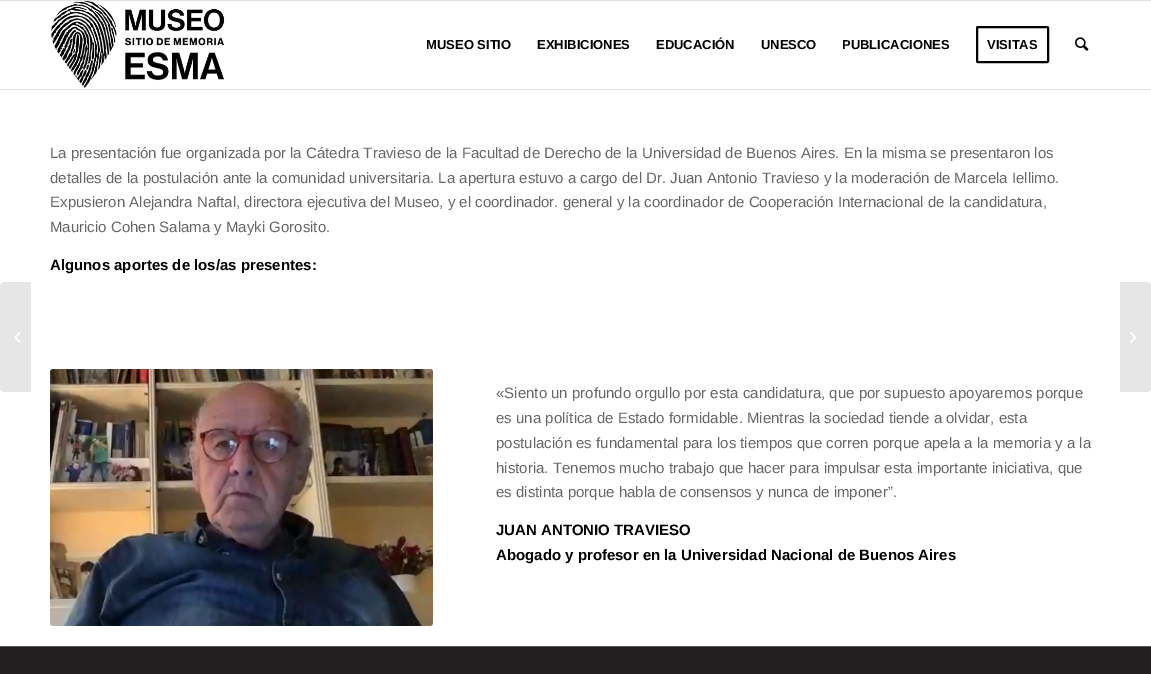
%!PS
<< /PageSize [1151 674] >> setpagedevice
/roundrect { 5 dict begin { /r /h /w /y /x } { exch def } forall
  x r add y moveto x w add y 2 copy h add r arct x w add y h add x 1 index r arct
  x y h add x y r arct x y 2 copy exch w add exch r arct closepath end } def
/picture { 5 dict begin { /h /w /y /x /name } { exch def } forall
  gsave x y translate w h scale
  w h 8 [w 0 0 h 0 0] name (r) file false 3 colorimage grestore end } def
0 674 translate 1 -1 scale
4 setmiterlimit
1 setgray
0 0 1151 674 rectfill
0.882 setgray
0 0 1151 1 rectfill
0 89 1151 1 rectfill
(img1.rgb) 51 1 174 87 picture
/LiberationSans-Bold [13 0 0 -13 0 0] selectfont
0 setgray
426 49 moveto (MUSEO SITIO) show
537 49 moveto (EXHIBICIONES) show
656 49 moveto (EDUCACIÓN) show
761 49 moveto (UNESCO) show
842 49 moveto (PUBLICACIONES) show
2 setlinewidth
977 27 71 35 1 roundrect stroke
987 49 moveto (VISITAS) show
(img2.rgb) 1075 37 14 14 picture
0.902 setgray
newpath 4 282 moveto 31 282 lineto 31 392 lineto 4 392 lineto 2 392 0 390 0 388 curveto 0 286 lineto 0 284 2 282 4 282 curveto closepath fill
(img3.rgb) 14 332 7 11 picture
/LiberationSans-Regular [15 0 0 -15 0 0] selectfont
0.4 setgray
50 158 moveto (La presentación fue organizada por la Cátedra Travieso de la Facultad de Derecho de la Universidad de Buenos Aires. En la misma se presentaron los) show
50 183 moveto (detalles de la postulación ante la comunidad universitaria. La apertura estuvo a cargo del Dr. Juan Antonio Travieso y la moderación de Marcela Iellimo.) show
50 207 moveto (Expusieron Alejandra Naftal, directora ejecutiva del Museo, y el coordinador. general y la coordinador de Cooperación Internacional de la candidatura,) show
50 232 moveto (Mauricio Cohen Salama y Mayki Gorosito.) show
/LiberationSans-Bold [15 0 0 -15 0 0] selectfont
0 setgray
50 270 moveto (Algunos aportes de los/as presentes:) show
(img4.rgb) 50 369 383 257 picture
/LiberationSans-Regular [15 0 0 -15 0 0] selectfont
0.4 setgray
496 398 moveto («Siento un profundo orgullo por esta candidatura, que por supuesto apoyaremos porque) show
496 423 moveto (es una política de Estado formidable. Mientras la sociedad tiende a olvidar, esta) show
496 448 moveto (postulación es fundamental para los tiempos que corren porque apela a la memoria y a la) show
496 473 moveto (historia. Tenemos mucho trabajo que hacer para impulsar esta importante iniciativa, que) show
496 497 moveto (es distinta porque habla de consensos y nunca de imponer”.) show
/LiberationSans-Bold [15 0 0 -15 0 0] selectfont
0 setgray
496 535 moveto (JUAN ANTONIO TRAVIESO) show
496 560 moveto (Abogado y profesor en la Universidad Nacional de Buenos Aires) show
0.137 0.122 0.125 setrgbcolor
0 647 1151 27 rectfill
0.333 setgray
0 646 1151 1 rectfill
0.902 setgray
newpath 1120 282 moveto 1147 282 lineto 1149 282 1151 284 1151 286 curveto 1151 388 lineto 1151 390 1149 392 1147 392 curveto 1120 392 lineto closepath fill
(img5.rgb) 1130 332 7 11 picture
showpage
